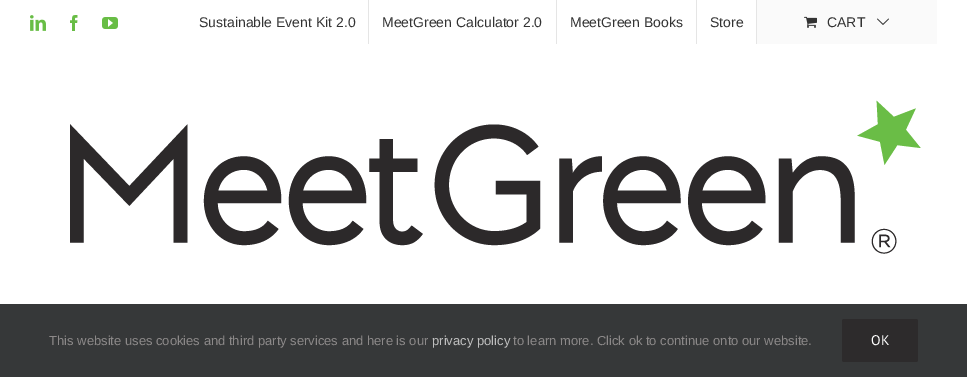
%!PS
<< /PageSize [967 377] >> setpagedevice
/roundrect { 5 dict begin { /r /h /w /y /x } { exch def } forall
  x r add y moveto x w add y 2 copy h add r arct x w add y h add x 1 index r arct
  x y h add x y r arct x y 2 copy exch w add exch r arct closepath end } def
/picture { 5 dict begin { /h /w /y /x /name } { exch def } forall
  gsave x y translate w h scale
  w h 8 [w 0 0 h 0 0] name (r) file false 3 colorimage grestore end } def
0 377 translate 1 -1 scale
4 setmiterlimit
1 setgray
0 0 967 377 rectfill
(img1.rgb) 30 15 16 16 picture
(img2.rgb) 70 15 8 16 picture
(img3.rgb) 102 17 16 12 picture
/LiberationSans-Regular [14 0 0 -14 0 0] selectfont
0.2 setgray
199 27 moveto (Sustainable Event Kit 2.0) show
0.898 setgray
368 0 1 44 rectfill
0.2 setgray
382 27 moveto (MeetGreen Calculator 2.0) show
0.898 setgray
556 0 1 44 rectfill
0.2 setgray
570 27 moveto (MeetGreen Books) show
0.898 setgray
696 0 1 44 rectfill
0.2 setgray
710 27 moveto (Store) show
0.898 setgray
756 0 1 44 rectfill
0.98 setgray
757 0 180 44 rectfill
(img4.rgb) 804 16 13 12 picture
0.2 setgray
827 27 moveto (CART) show
(img5.rgb) 877 18 12 7 picture
(img6.rgb) 70 100 851 154 picture
0.212 0.22 0.224 setrgbcolor
0 304 967 73 rectfill
/LiberationSans-Regular [13 0 0 -13 0 0] selectfont
0.549 0.537 0.537 setrgbcolor
49 345 moveto (This website uses cookies and third party services and here is our) show
0.749 setgray
432 345 moveto (privacy policy) show
0.549 0.537 0.537 setrgbcolor
513 345 moveto (to learn more. Click ok to continue onto our website.) show
0.176 0.169 0.173 setrgbcolor
842 319 76 43 2 roundrect fill
/PTSans-Regular [14 0 0 -14 0 0] selectfont
1 setgray
871 345 moveto (OK) show
showpage
